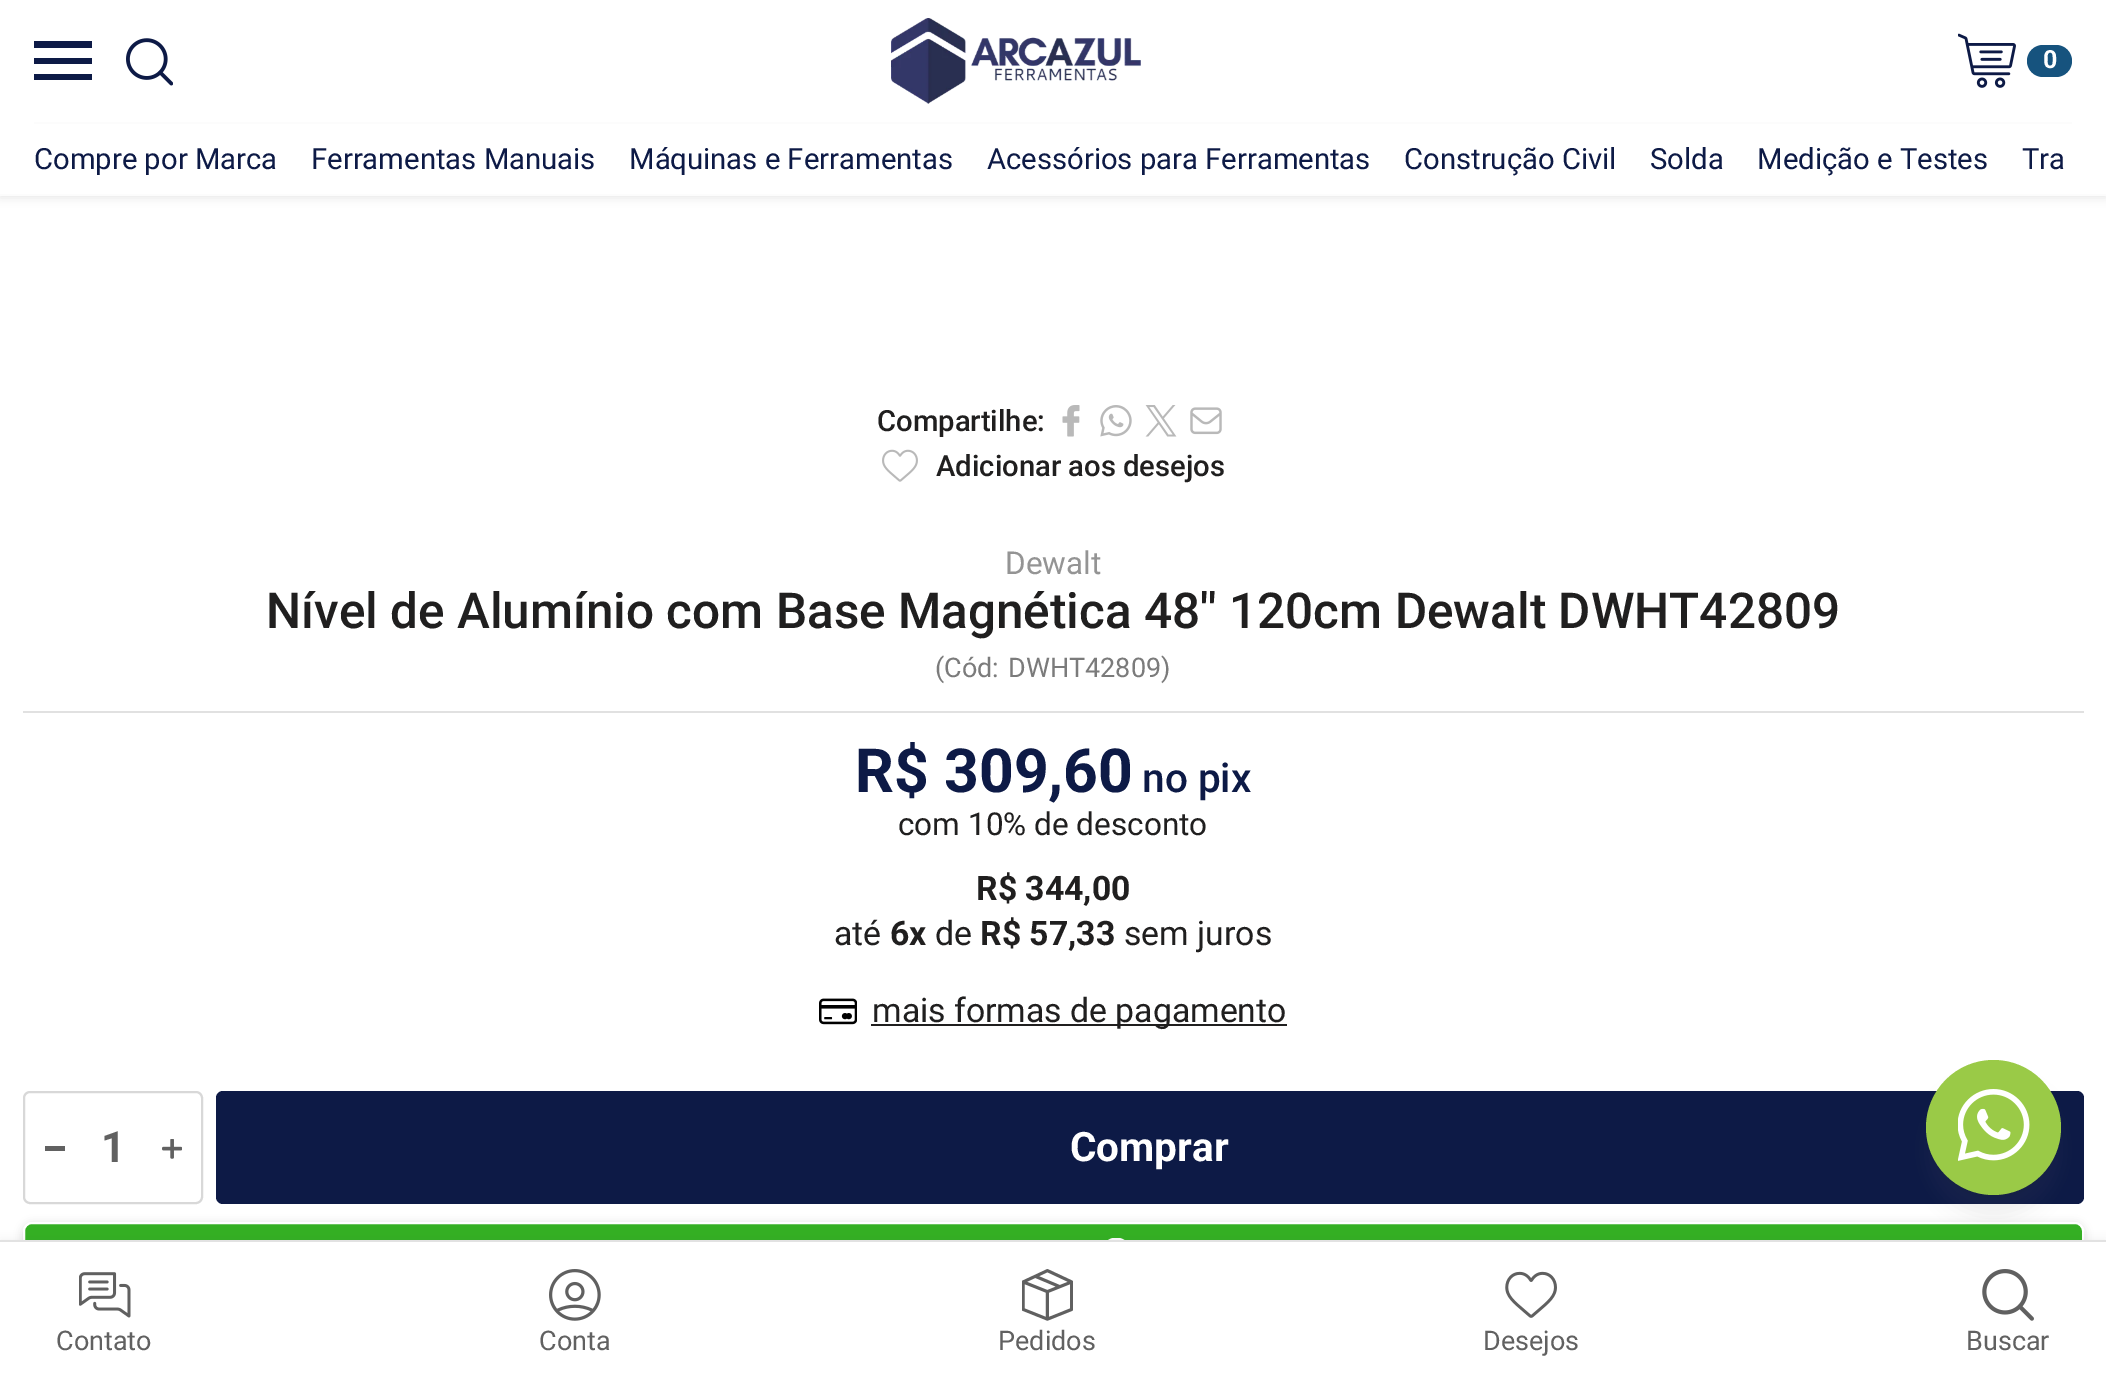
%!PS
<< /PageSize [2106 1396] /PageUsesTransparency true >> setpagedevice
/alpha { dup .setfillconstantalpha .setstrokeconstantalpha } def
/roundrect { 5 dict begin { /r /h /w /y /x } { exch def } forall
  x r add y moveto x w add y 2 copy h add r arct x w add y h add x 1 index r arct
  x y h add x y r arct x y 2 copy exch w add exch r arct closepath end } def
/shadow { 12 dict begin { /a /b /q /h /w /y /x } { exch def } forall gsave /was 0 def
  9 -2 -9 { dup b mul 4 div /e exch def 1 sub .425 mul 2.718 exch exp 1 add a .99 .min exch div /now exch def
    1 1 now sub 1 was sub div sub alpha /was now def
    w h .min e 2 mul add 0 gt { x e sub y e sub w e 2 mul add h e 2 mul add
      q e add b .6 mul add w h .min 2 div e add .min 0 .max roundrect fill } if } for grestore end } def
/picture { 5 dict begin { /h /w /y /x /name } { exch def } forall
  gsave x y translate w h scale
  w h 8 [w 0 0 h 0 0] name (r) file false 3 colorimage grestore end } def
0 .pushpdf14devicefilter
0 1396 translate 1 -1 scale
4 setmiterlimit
1 setgray
0 0 2106 1396 rectfill
0.322 setgray
0 2 2106 196 0 4.5 0.13 shadow
1 setgray
0 0 2106 194 rectfill
0.988 setgray
0 194 2106 2 rectfill
0.051 0.102 0.275 setrgbcolor
34 74 58 6 rectfill
34 58 58 6 rectfill
34 41 58 7 rectfill
(img1.rgb) 126 38 47 48 picture
(img2.rgb) 891 18 250 86 picture
(img3.rgb) 1958 33 58 55 picture
0.086 0.325 0.494 setrgbcolor
2027 45 45 32 16 roundrect fill
/Roboto-Bold [25 0 0 -25 0 0] selectfont
1 setgray
2043 68 moveto (0) show
0.988 setgray
34 122 2038 2 rectfill
/Roboto-Regular [29.25 0 0 -29.25 0 0] selectfont
0.051 0.102 0.275 setrgbcolor
34 169 moveto (Compre por Marca) show
311 169 moveto (Ferramentas Manuais) show
629 169 moveto (Máquinas e Ferramentas) show
987 169 moveto (Acessórios para Ferramentas) show
1404 169 moveto (Construção Civil) show
1650 169 moveto (Solda) show
1757 169 moveto (Medição e Testes) show
2022 169 moveto (Tra) show
/Roboto-Medium [29.25 0 0 -29.25 0 0] selectfont
0.125 0.122 0.122 setrgbcolor
877 431 moveto (Compartilhe:) show
(img4.rgb) 1062 405 18 32 picture
(img5.rgb) 1100 405 32 32 picture
(img6.rgb) 1145 405 32 32 picture
(img7.rgb) 1190 407 32 28 picture
(img8.rgb) 882 449 36 33 picture
936 476 moveto (Adicionar aos desejos) show
0.882 setgray
23 711 2061 2 rectfill
/Roboto-Regular [31.5 0 0 -31.5 0 0] selectfont
0.58 setgray
1005 574 moveto (Dewalt) show
/Roboto-Medium [49.5 0 0 -49.5 0 0] selectfont
0.125 0.122 0.122 setrgbcolor
266 628 moveto (Nível de Alumínio com Base Magnética 48'' 120cm Dewalt DWHT42809) show
/Roboto-Regular [27 0 0 -27 0 0] selectfont
0.482 setgray
935 677 moveto (\(Cód:) show
1008 677 moveto (DWHT42809\)) show
/Roboto-Bold [60.75 0 0 -60.75 0 0] selectfont
0.051 0.102 0.275 setrgbcolor
855 792 moveto (R$ 309,60) show
/Roboto-Medium [40.5 0 0 -40.5 0 0] selectfont
1142 792 moveto (no pix) show
/Roboto-Regular [31.5 0 0 -31.5 0 0] selectfont
0.125 0.122 0.122 setrgbcolor
898 835 moveto (com 10% de desconto) show
/Roboto-Bold [33.75 0 0 -33.75 0 0] selectfont
976 900 moveto (R$ 344,00) show
/Roboto-Regular [33.75 0 0 -33.75 0 0] selectfont
834 945 moveto (até) show
/Roboto-Bold [33.75 0 0 -33.75 0 0] selectfont
890 945 moveto (6x) show
/Roboto-Regular [33.75 0 0 -33.75 0 0] selectfont
935 945 moveto (de) show
/Roboto-Bold [33.75 0 0 -33.75 0 0] selectfont
980 945 moveto (R$ 57,33) show
/Roboto-Regular [33.75 0 0 -33.75 0 0] selectfont
1124 945 moveto (sem juros) show
(img9.rgb) 819 998 38 27 picture
871 1024 416 2 rectfill
872 1022 moveto (mais formas de pagamento) show
0.847 setgray
2 setlinewidth
24 1092 178 111 6 roundrect stroke
0.38 setgray
45 1146 20 5 rectfill
/Roboto-Bold [43 0 0 -43 0 0] selectfont
101 1162 moveto (1) show
(img10.rgb) 162 1139 20 20 picture
0.051 0.102 0.275 setrgbcolor
216 1091 1868 113 7 roundrect fill
/Roboto-Bold [40.5 0 0 -40.5 0 0] selectfont
1 setgray
1070 1161 moveto (Comprar) show
0.694 setgray
23 1224 2061 63 9 4.5 0.46 shadow
0.204 0.686 0.137 setrgbcolor
24 1223 2059 61 8 roundrect gsave fill grestore
1 setgray
stroke
(img11.rgb) 1108 1238 17 2 picture
0.404 setgray
1926 1082 135 135 67.5 9 0.1 shadow
0 setgray
1926 1064 135 135 67.5 1 0.04 shadow
0.604 0.792 0.278 setrgbcolor
newpath 1993.5 1127.5 67.5 0 360 arc closepath fill
(img12.rgb) 1958 1089 72 72 picture
0.322 setgray
0 1240 2106 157 0 4.5 0.08 shadow
1 setgray
0 1242 2106 154 rectfill
0.886 setgray
0 1240 2106 2 rectfill
(img13.rgb) 79 1272 52 46 picture
/Roboto-Regular [27 0 0 -27 0 0] selectfont
0.38 setgray
56 1350 moveto (Contato) show
(img14.rgb) 549 1269 52 52 picture
539 1350 moveto (Conta) show
(img15.rgb) 1022 1269 51 52 picture
998 1350 moveto (Pedidos) show
(img16.rgb) 1505 1271 52 47 picture
1483 1350 moveto (Desejos) show
(img17.rgb) 1982 1269 52 52 picture
1966 1350 moveto (Buscar) show
.poppdf14devicefilter showpage
